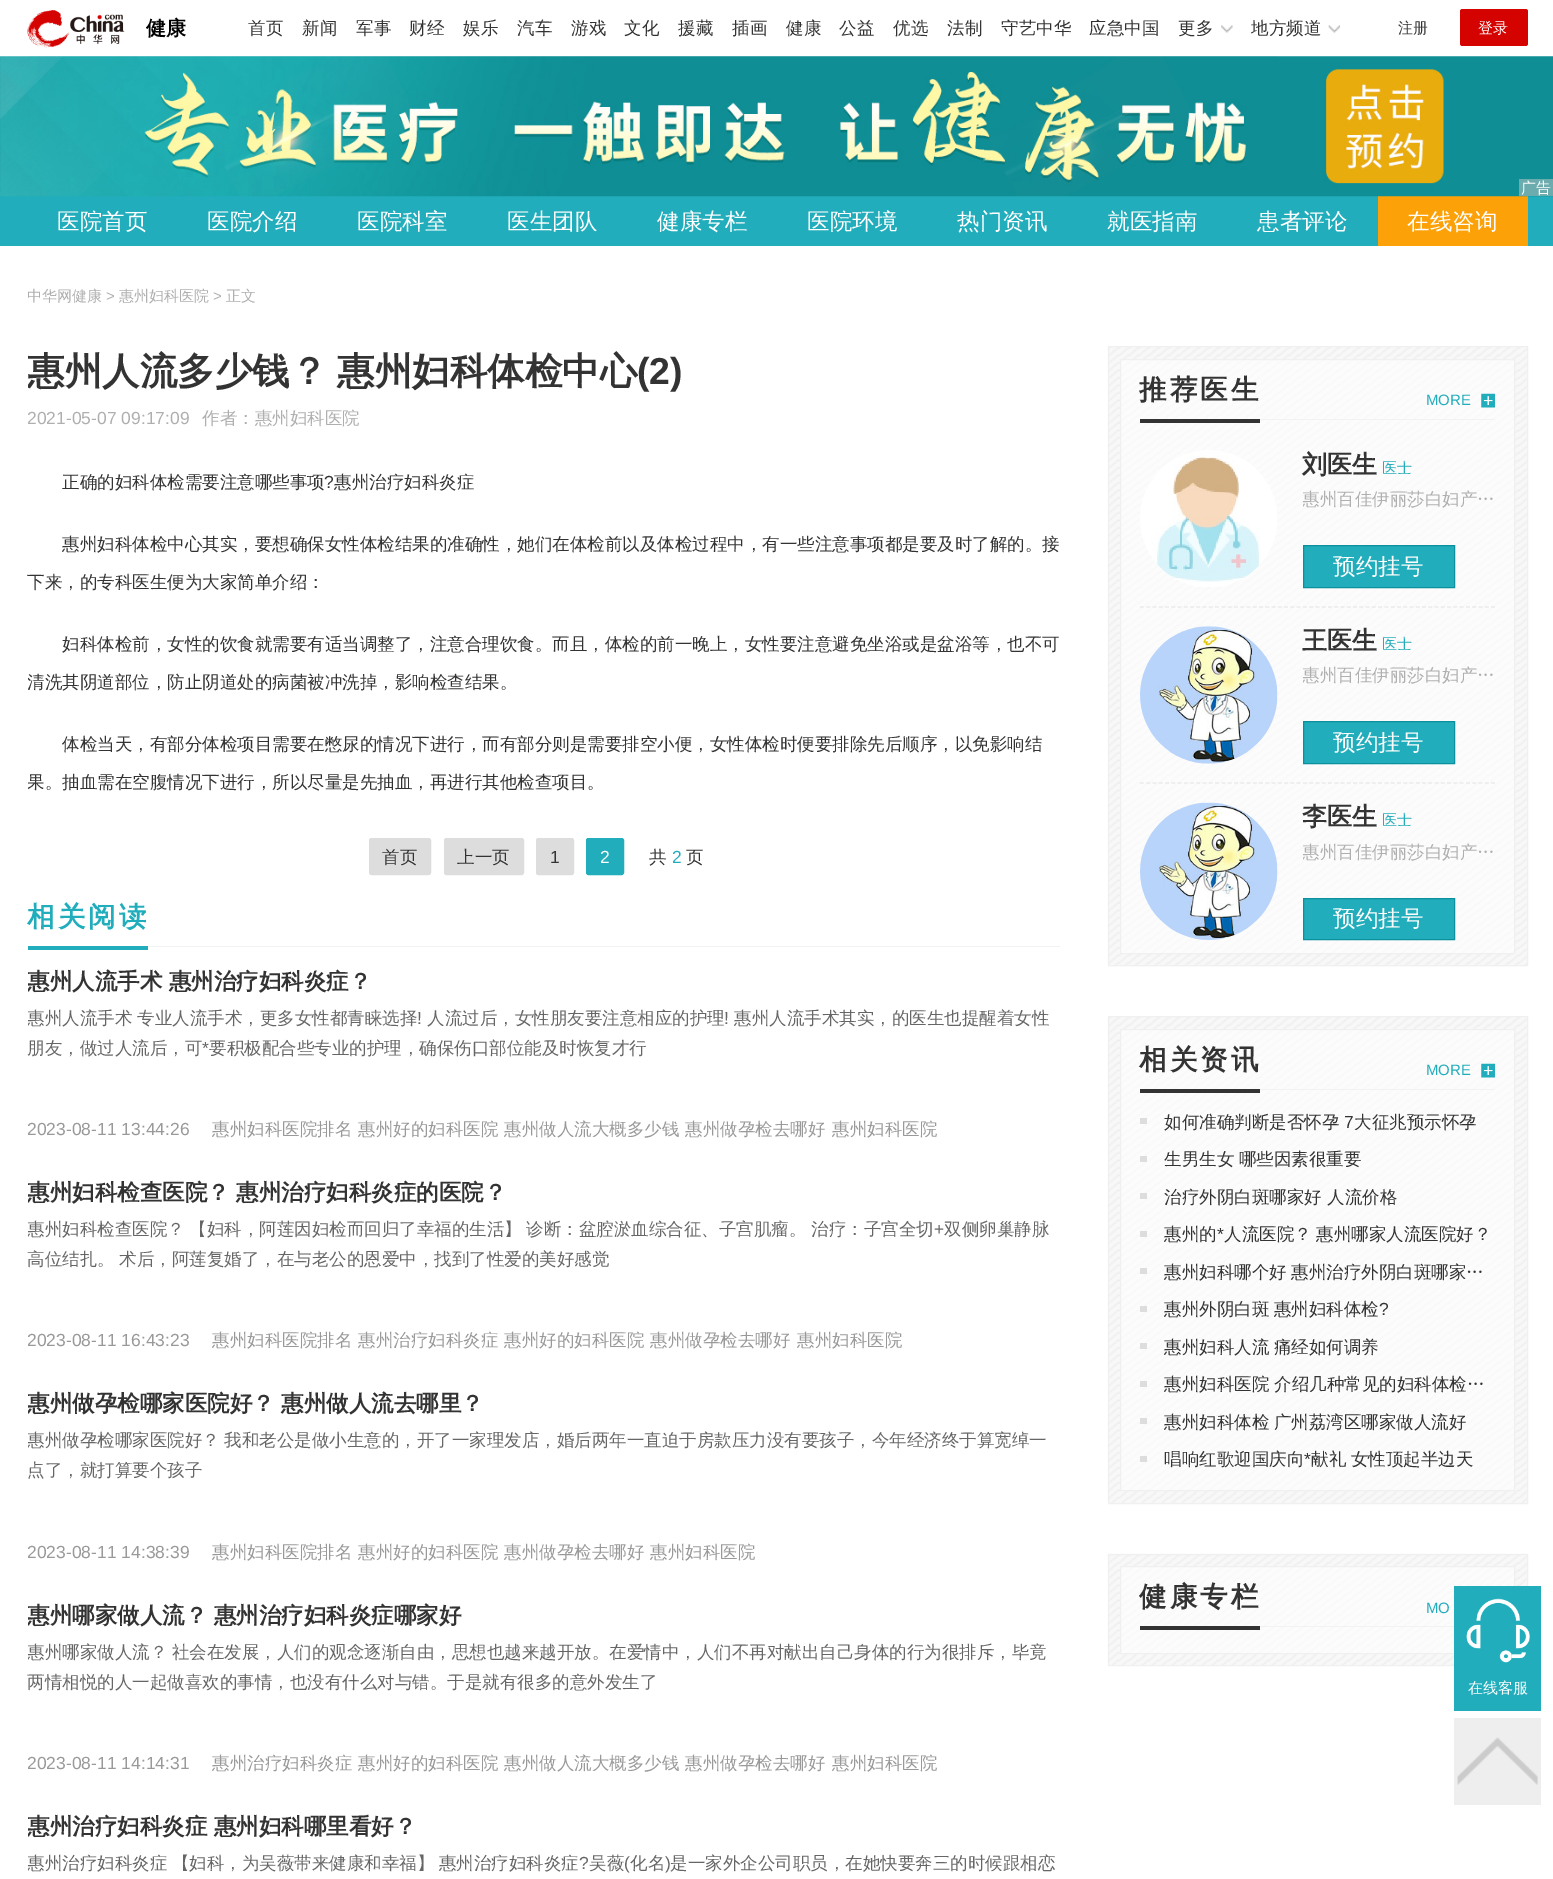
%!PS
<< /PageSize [1553 1879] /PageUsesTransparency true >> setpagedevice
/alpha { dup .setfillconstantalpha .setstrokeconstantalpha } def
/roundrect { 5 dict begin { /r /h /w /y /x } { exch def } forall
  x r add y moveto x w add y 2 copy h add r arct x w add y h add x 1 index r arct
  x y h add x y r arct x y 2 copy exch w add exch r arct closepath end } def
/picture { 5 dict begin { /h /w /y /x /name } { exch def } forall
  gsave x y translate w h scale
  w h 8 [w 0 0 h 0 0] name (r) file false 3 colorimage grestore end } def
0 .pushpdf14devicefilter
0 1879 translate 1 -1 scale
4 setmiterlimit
1 setgray
0 0 1553 1879 rectfill
(img1.rgb) 27 10 98 38 picture
/WenQuanYiZenHei-Bold [20 0 0 -20 0 0] selectfont
0 setgray
146 35 moveto (健康) show
/WenQuanYiZenHei-Medium [17.5 0 0 -17.5 0 0] selectfont
0.2 setgray
248 34 moveto (首页) show
302 34 moveto (新闻) show
356 34 moveto (军事) show
409 34 moveto (财经) show
463 34 moveto (娱乐) show
517 34 moveto (汽车) show
571 34 moveto (游戏) show
624 34 moveto (文化) show
678 34 moveto (援藏) show
732 34 moveto (插画) show
786 34 moveto (健康) show
839 34 moveto (公益) show
893 34 moveto (优选) show
947 34 moveto (法制) show
1001 34 moveto (守艺中华) show
1089 34 moveto (应急中国) show
1178 34 moveto (更多) show
(img2.rgb) 1221 25 12 8 picture
1251 34 moveto (地方频道) show
(img3.rgb) 1328 25 12 8 picture
/WenQuanYiZenHei-Medium [15 0 0 -15 0 0] selectfont
1398 33 moveto (注册) show
0.831 0.012 0 setrgbcolor
1460 9 68 37 2.5 roundrect fill
1 setgray
1478 33 moveto (登录) show
0.129 0.678 0.733 setrgbcolor
0 196 1553 50 rectfill
0.992 0.631 0.031 setrgbcolor
1378 196 150 50 rectfill
(img4.rgb) 0 56 1553 141 picture
0.424 0.675 0.686 setrgbcolor
1519 179 34 17 rectfill
1 setgray
1521 193 moveto (广告) show
/WenQuanYiZenHei-Medium [22.5 0 0 -22.5 0 0] selectfont
57 229 moveto (医院首页) show
207 229 moveto (医院介绍) show
357 229 moveto (医院科室) show
507 229 moveto (医生团队) show
657 229 moveto (健康专栏) show
807 229 moveto (医院环境) show
957 229 moveto (热门资讯) show
1107 229 moveto (就医指南) show
1257 229 moveto (患者评论) show
1407 229 moveto (在线咨询) show
gsave
28 246 228 100 rectclip
/WenQuanYiZenHei-Medium [15 0 0 -15 0 0] selectfont
0.686 setgray
27 301 moveto (中华网健康) show
grestore
/LiberationSans-Regular [15 0 0 -15 0 0] selectfont
0.686 setgray
106 301 moveto (>) show
/WenQuanYiZenHei-Medium [15 0 0 -15 0 0] selectfont
119 301 moveto (惠州妇科医院) show
/LiberationSans-Regular [15 0 0 -15 0 0] selectfont
213 301 moveto (>) show
/WenQuanYiZenHei-Medium [15 0 0 -15 0 0] selectfont
226 301 moveto (正文) show
gsave
28 246 1032 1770 rectclip
/WenQuanYiZenHei-Bold [37.5 0 0 -37.5 0 0] selectfont
0.2 setgray
27 384 moveto -1 0 32 (惠州人流多少钱？ 惠州妇科体检中心) widthshow
grestore
/LiberationSans-Bold [37.5 0 0 -37.5 0 0] selectfont
0.2 setgray
637 384 moveto (\(2\)) show
/LiberationSans-Regular [17.5 0 0 -17.5 0 0] selectfont
0.686 setgray
27 424 moveto (2021-05-07 09:17:09) show
/WenQuanYiZenHei-Medium [17.5 0 0 -17.5 0 0] selectfont
202 424 moveto (作者：惠州妇科医院) show
0.2 setgray
62 488 moveto (正确的妇科体检需要注意哪些事项) show
/LiberationSans-Regular [17.5 0 0 -17.5 0 0] selectfont
324 488 moveto (?) show
/WenQuanYiZenHei-Medium [17.5 0 0 -17.5 0 0] selectfont
334 488 moveto (惠州治疗妇科炎症) show
62 550 moveto (惠州妇科体检中心其实，要想确保女性体检结果的准确性，她们在体检前以及体检过程中，有一些注意事项都是要及时了解的。接) show
27 588 moveto (下来，的专科医生便为大家简单介绍：) show
62 650 moveto (妇科体检前，女性的饮食就需要有适当调整了，注意合理饮食。而且，体检的前一晚上，女性要注意避免坐浴或是盆浴等，也不可) show
gsave
28 246 1032 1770 rectclip
27 688 moveto (清洗其阴道部位，防止阴道处的病菌被冲洗掉，影响检查结果。) show
grestore
62 750 moveto (体检当天，有部分体检项目需要在憋尿的情况下进行，而有部分则是需要排空小便，女性体检时便要排除先后顺序，以免影响结) show
gsave
28 246 1032 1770 rectclip
27 788 moveto (果。抽血需在空腹情况下进行，所以尽量是先抽血，再进行其他检查项目。) show
grestore
0.867 setgray
369.5 838.5 61 36 2 roundrect gsave fill grestore
stroke
0.2 setgray
382 863 moveto (首页) show
0.867 setgray
444.5 838.5 79 36 2 roundrect gsave fill grestore
stroke
0.2 setgray
457 863 moveto (上一页) show
0.867 setgray
536.5 838.5 37 36 2 roundrect gsave fill grestore
stroke
/LiberationSans-Regular [17.5 0 0 -17.5 0 0] selectfont
0.2 setgray
550 863 moveto (1) show
0.129 0.678 0.733 setrgbcolor
586.5 838.5 37 36 2 roundrect gsave fill grestore
stroke
1 setgray
600 863 moveto (2) show
/WenQuanYiZenHei-Medium [17.5 0 0 -17.5 0 0] selectfont
0.2 setgray
649 863 moveto (共) show
/LiberationSans-Regular [17.5 0 0 -17.5 0 0] selectfont
0.129 0.678 0.733 setrgbcolor
672 863 moveto (2) show
/WenQuanYiZenHei-Medium [17.5 0 0 -17.5 0 0] selectfont
0.2 setgray
686 863 moveto (页) show
0.949 setgray
148 946 912 1 rectfill
0.129 0.678 0.733 setrgbcolor
28 946 120 4 rectfill
/WenQuanYiZenHei-Bold [27.5 0 0 -27.5 0 0] selectfont
27 926 moveto 3 0 (相关阅读) ashow
gsave
28 960 1032 43 rectclip
/WenQuanYiZenHei-Bold [22.5 0 0 -22.5 0 0] selectfont
0.2 setgray
27 989 moveto (惠州人流手术 惠州治疗妇科炎症？) show
grestore
gsave
28 1003 1032 90 rectclip
/WenQuanYiZenHei-Medium [17.5 0 0 -17.5 0 0] selectfont
0.4 setgray
27 1024 moveto (惠州人流手术 专业人流手术，更多女性都青睐选择) show
grestore
/LiberationSans-Regular [17.5 0 0 -17.5 0 0] selectfont
0.4 setgray
417 1024 moveto (!) show
/WenQuanYiZenHei-Medium [17.5 0 0 -17.5 0 0] selectfont
427 1024 moveto (人流过后，女性朋友要注意相应的护理) show
/LiberationSans-Regular [17.5 0 0 -17.5 0 0] selectfont
724 1024 moveto (!) show
/WenQuanYiZenHei-Medium [17.5 0 0 -17.5 0 0] selectfont
734 1024 moveto (惠州人流手术其实，的医生也提醒着女性) show
27 1054 moveto (朋友，做过人流后，可) show
/LiberationSans-Regular [17.5 0 0 -17.5 0 0] selectfont
202 1054 moveto (*) show
/WenQuanYiZenHei-Medium [17.5 0 0 -17.5 0 0] selectfont
209 1054 moveto (要积极配合些专业的护理，确保伤口部位能及时恢复才行) show
/LiberationSans-Regular [17.5 0 0 -17.5 0 0] selectfont
0.6 setgray
27 1135 moveto (2023-08-11 13:44:26) show
/WenQuanYiZenHei-Medium [17.5 0 0 -17.5 0 0] selectfont
212 1135 moveto (惠州妇科医院排名) show
358 1135 moveto (惠州好的妇科医院) show
504 1135 moveto (惠州做人流大概多少钱) show
685 1135 moveto (惠州做孕检去哪好) show
832 1135 moveto (惠州妇科医院) show
gsave
28 1171 1032 43 rectclip
/WenQuanYiZenHei-Bold [22.5 0 0 -22.5 0 0] selectfont
0.2 setgray
27 1200 moveto (惠州妇科检查医院？) show
grestore
/WenQuanYiZenHei-Bold [22.5 0 0 -22.5 0 0] selectfont
0.2 setgray
236 1200 moveto (惠州治疗妇科炎症的医院？) show
gsave
28 1214 1032 90 rectclip
/WenQuanYiZenHei-Medium [17.5 0 0 -17.5 0 0] selectfont
0.4 setgray
27 1235 moveto -0.5 0 32 (惠州妇科检查医院？ 【妇科，阿莲因妇检而回归了幸福的生活】 诊断：盆腔淤血综合征、子宫肌瘤。 治疗：子宫全切) widthshow
grestore
/LiberationSans-Regular [17.5 0 0 -17.5 0 0] selectfont
0.4 setgray
934 1235 moveto (+) show
/WenQuanYiZenHei-Medium [17.5 0 0 -17.5 0 0] selectfont
944 1235 moveto (双侧卵巢静脉) show
27 1265 moveto -0.5 0 32 (高位结扎。 术后，阿莲复婚了，在与老公的恩爱中，找到了性爱的美好感觉) widthshow
/LiberationSans-Regular [17.5 0 0 -17.5 0 0] selectfont
0.6 setgray
27 1346 moveto (2023-08-11 16:43:23) show
/WenQuanYiZenHei-Medium [17.5 0 0 -17.5 0 0] selectfont
212 1346 moveto (惠州妇科医院排名) show
358 1346 moveto (惠州治疗妇科炎症) show
504 1346 moveto (惠州好的妇科医院) show
650 1346 moveto (惠州做孕检去哪好) show
797 1346 moveto (惠州妇科医院) show
gsave
28 1383 1032 42 rectclip
/WenQuanYiZenHei-Bold [22.5 0 0 -22.5 0 0] selectfont
0.2 setgray
27 1411 moveto (惠州做孕检哪家医院好？ 惠州做人流去哪里？) show
grestore
gsave
28 1425 1032 90 rectclip
0.4 setgray
27 1446 moveto -0.5 0 32 (惠州做孕检哪家医院好？ 我和老公是做小生意的，开了一家理发店，婚后两年一直迫于房款压力没有要孩子，今年经济终于算宽绰一) widthshow
grestore
0.4 setgray
27 1476 moveto (点了，就打算要个孩子) show
/LiberationSans-Regular [17.5 0 0 -17.5 0 0] selectfont
0.6 setgray
27 1558 moveto (2023-08-11 14:38:39) show
/WenQuanYiZenHei-Medium [17.5 0 0 -17.5 0 0] selectfont
212 1558 moveto (惠州妇科医院排名) show
358 1558 moveto (惠州好的妇科医院) show
504 1558 moveto (惠州做孕检去哪好) show
650 1558 moveto (惠州妇科医院) show
gsave
28 1594 1032 42 rectclip
/WenQuanYiZenHei-Bold [22.5 0 0 -22.5 0 0] selectfont
0.2 setgray
27 1623 moveto (惠州哪家做人流？ 惠州治疗妇科炎症哪家好) show
grestore
gsave
28 1636 1032 90 rectclip
0.4 setgray
27 1658 moveto -0.5 0 32 (惠州哪家做人流？ 社会在发展，人们的观念逐渐自由，思想也越来越开放。在爱情中，人们不再对献出自己身体的行为很排斥，毕竟) widthshow
grestore
0.4 setgray
27 1688 moveto (两情相悦的人一起做喜欢的事情，也没有什么对与错。于是就有很多的意外发生了) show
/LiberationSans-Regular [17.5 0 0 -17.5 0 0] selectfont
0.6 setgray
27 1769 moveto (2023-08-11 14:14:31) show
/WenQuanYiZenHei-Medium [17.5 0 0 -17.5 0 0] selectfont
212 1769 moveto (惠州治疗妇科炎症) show
358 1769 moveto (惠州好的妇科医院) show
504 1769 moveto (惠州做人流大概多少钱) show
685 1769 moveto (惠州做孕检去哪好) show
832 1769 moveto (惠州妇科医院) show
gsave
28 1805 1032 43 rectclip
/WenQuanYiZenHei-Bold [22.5 0 0 -22.5 0 0] selectfont
0.2 setgray
27 1834 moveto (惠州治疗妇科炎症 惠州妇科哪里看好？) show
grestore
gsave
28 1848 1032 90 rectclip
0.4 setgray
27 1869 moveto -0.5 0 32 (惠州治疗妇科炎症 【妇科，为吴薇带来健康和幸福】 惠州治疗妇科炎症) widthshow
grestore
/LiberationSans-Regular [17.5 0 0 -17.5 0 0] selectfont
0.4 setgray
579 1869 moveto (?) show
/WenQuanYiZenHei-Medium [17.5 0 0 -17.5 0 0] selectfont
589 1869 moveto (吴薇) show
/LiberationSans-Regular [17.5 0 0 -17.5 0 0] selectfont
624 1869 moveto (\() show
/WenQuanYiZenHei-Medium [17.5 0 0 -17.5 0 0] selectfont
630 1869 moveto (化名) show
/LiberationSans-Regular [17.5 0 0 -17.5 0 0] selectfont
665 1869 moveto (\)) show
/WenQuanYiZenHei-Medium [17.5 0 0 -17.5 0 0] selectfont
670 1869 moveto (是一家外企公司职员，在她快要奔三的时候跟相恋) show
(img5.rgb) 1107 346 421 621 picture
0.941 setgray
1108.5 346.5 419 619 rectstroke
0.6 alpha
1 setgray
newpath 1120.5 359.5 moveto 1514.5 359.5 lineto 1514.5 953.5 lineto 1120.5 953.5 lineto closepath fill
1 alpha
0.941 setgray
newpath 1120.5 359.5 moveto 1514.5 359.5 lineto 1514.5 953.5 lineto 1120.5 953.5 lineto closepath stroke
0.949 setgray
1260 419 235 1 rectfill
0.2 setgray
1140 419 120 4 rectfill
/WenQuanYiZenHei-Bold [27.5 0 0 -27.5 0 0] selectfont
1139 399 moveto 3 0 (推荐医生) ashow
/LiberationSans-Regular [15 0 0 -15 0 0] selectfont
0.129 0.678 0.733 setrgbcolor
1426 405 moveto (MORE) show
(img6.rgb) 1481 393 14 15 picture
(img7.rgb) 1140 450 137 137 picture
/WenQuanYiZenHei-Bold [25 0 0 -25 0 0] selectfont
0.2 setgray
1302 473 moveto (刘医生) show
/WenQuanYiZenHei-Medium [15 0 0 -15 0 0] selectfont
0.129 0.678 0.733 setrgbcolor
1382 473 moveto (医士) show
gsave
1303 480 192 33 rectclip
/WenQuanYiZenHei-Medium [17.5 0 0 -17.5 0 0] selectfont
0.686 setgray
1302 505 moveto (惠州百佳伊丽莎白妇产…) show
grestore
newpath 1303.5 545.5 moveto 1454.5 545.5 lineto 1454.5 587.5 lineto 1303.5 587.5 lineto closepath gsave fill grestore
0.047 0.565 0.616 setrgbcolor
stroke
/WenQuanYiZenHei-Medium [22.5 0 0 -22.5 0 0] selectfont
1 setgray
1333 574 moveto (预约挂号) show
0.918 setgray
1.2 setlinewidth
[3.75 2.52] 0 setdash
newpath 1140 607 moveto 1495 607 lineto stroke
(img8.rgb) 1140 626 138 138 picture
/WenQuanYiZenHei-Bold [25 0 0 -25 0 0] selectfont
0.2 setgray
1302 649 moveto (王医生) show
/WenQuanYiZenHei-Medium [15 0 0 -15 0 0] selectfont
0.129 0.678 0.733 setrgbcolor
1382 649 moveto (医士) show
gsave
1303 656 192 33 rectclip
/WenQuanYiZenHei-Medium [17.5 0 0 -17.5 0 0] selectfont
0.686 setgray
1302 681 moveto (惠州百佳伊丽莎白妇产…) show
grestore
newpath 1303.5 721.5 moveto 1454.5 721.5 lineto 1454.5 763.5 lineto 1303.5 763.5 lineto closepath gsave fill grestore
0.047 0.565 0.616 setrgbcolor
1 setlinewidth
[] 0 setdash
stroke
/WenQuanYiZenHei-Medium [22.5 0 0 -22.5 0 0] selectfont
1 setgray
1333 750 moveto (预约挂号) show
0.918 setgray
1.2 setlinewidth
[3.75 2.52] 0 setdash
newpath 1140 783 moveto 1495 783 lineto stroke
(img9.rgb) 1140 802 138 138 picture
/WenQuanYiZenHei-Bold [25 0 0 -25 0 0] selectfont
0.2 setgray
1302 825 moveto (李医生) show
/WenQuanYiZenHei-Medium [15 0 0 -15 0 0] selectfont
0.129 0.678 0.733 setrgbcolor
1382 825 moveto (医士) show
gsave
1303 833 192 32 rectclip
/WenQuanYiZenHei-Medium [17.5 0 0 -17.5 0 0] selectfont
0.686 setgray
1302 858 moveto (惠州百佳伊丽莎白妇产…) show
grestore
newpath 1303.5 898.5 moveto 1454.5 898.5 lineto 1454.5 939.5 lineto 1303.5 939.5 lineto closepath gsave fill grestore
0.047 0.565 0.616 setrgbcolor
1 setlinewidth
[] 0 setdash
stroke
/WenQuanYiZenHei-Medium [22.5 0 0 -22.5 0 0] selectfont
1 setgray
1333 926 moveto (预约挂号) show
(img10.rgb) 1107 1016 420 488 picture
0.941 setgray
1108.5 1016.5 419 487 rectstroke
0.6 alpha
1 setgray
newpath 1120.5 1029.5 moveto 1514.5 1029.5 lineto 1514.5 1490.5 lineto 1120.5 1490.5 lineto closepath fill
1 alpha
0.941 setgray
newpath 1120.5 1029.5 moveto 1514.5 1029.5 lineto 1514.5 1490.5 lineto 1120.5 1490.5 lineto closepath stroke
0.949 setgray
1260 1089 235 1 rectfill
0.2 setgray
1140 1089 120 4 rectfill
/WenQuanYiZenHei-Bold [27.5 0 0 -27.5 0 0] selectfont
1139 1069 moveto 3 0 (相关资讯) ashow
/LiberationSans-Regular [15 0 0 -15 0 0] selectfont
0.129 0.678 0.733 setrgbcolor
1426 1075 moveto (MORE) show
(img6.rgb) 1481 1063 14 15 picture
0.867 setgray
1140 1118 7 6 rectfill
/WenQuanYiZenHei-Medium [17.5 0 0 -17.5 0 0] selectfont
0.2 setgray
1164 1128 moveto (如何准确判断是否怀孕) show
/LiberationSans-Regular [17.5 0 0 -17.5 0 0] selectfont
1344 1128 moveto (7) show
/WenQuanYiZenHei-Medium [17.5 0 0 -17.5 0 0] selectfont
1354 1128 moveto (大征兆预示怀孕) show
0.867 setgray
1140 1156 7 6 rectfill
0.2 setgray
1164 1165 moveto -0.5 0 32 (生男生女 哪些因素很重要) widthshow
0.867 setgray
1140 1193 7 6 rectfill
0.2 setgray
1164 1203 moveto (治疗外阴白斑哪家好) show
1327 1203 moveto (人流价格) show
0.867 setgray
1140 1231 7 6 rectfill
0.2 setgray
1164 1240 moveto (惠州的) show
/LiberationSans-Regular [17.5 0 0 -17.5 0 0] selectfont
1217 1240 moveto (*) show
/WenQuanYiZenHei-Medium [17.5 0 0 -17.5 0 0] selectfont
1224 1240 moveto -0.5 0 32 (人流医院？ 惠州哪家人流医院好？) widthshow
0.867 setgray
1140 1268 7 6 rectfill
0.2 setgray
1164 1278 moveto -0.5 0 32 (惠州妇科哪个好 惠州治疗外阴白斑哪家…) widthshow
0.867 setgray
1140 1306 7 6 rectfill
0.2 setgray
1164 1315 moveto -0.5 0 32 (惠州外阴白斑 惠州妇科体检) widthshow
/LiberationSans-Regular [17.5 0 0 -17.5 0 0] selectfont
1379 1315 moveto (?) show
0.867 setgray
1140 1343 7 6 rectfill
/WenQuanYiZenHei-Medium [17.5 0 0 -17.5 0 0] selectfont
0.2 setgray
1164 1353 moveto -0.5 0 32 (惠州妇科人流 痛经如何调养) widthshow
0.867 setgray
1140 1381 7 6 rectfill
0.2 setgray
1164 1390 moveto (惠州妇科医院) show
1274 1390 moveto (介绍几种常见的妇科体检…) show
0.867 setgray
1140 1418 7 6 rectfill
0.2 setgray
1164 1428 moveto -0.5 0 32 (惠州妇科体检 广州荔湾区哪家做人流好) widthshow
0.867 setgray
1140 1456 7 6 rectfill
0.2 setgray
1164 1465 moveto (唱响红歌迎国庆向) show
/LiberationSans-Regular [17.5 0 0 -17.5 0 0] selectfont
1304 1465 moveto (*) show
/WenQuanYiZenHei-Medium [17.5 0 0 -17.5 0 0] selectfont
1311 1465 moveto -0.5 0 32 (献礼 女性顶起半边天) widthshow
(img11.rgb) 1107 1553 421 113 picture
0.941 setgray
1108.5 1554.5 419 111 rectstroke
0.6 alpha
1 setgray
newpath 1120.5 1566.5 moveto 1514.5 1566.5 lineto 1514.5 1653.5 lineto 1120.5 1653.5 lineto closepath fill
1 alpha
0.941 setgray
newpath 1120.5 1566.5 moveto 1514.5 1566.5 lineto 1514.5 1653.5 lineto 1120.5 1653.5 lineto closepath stroke
0.949 setgray
1260 1626 194 1 rectfill
0.2 setgray
1140 1626 120 4 rectfill
/WenQuanYiZenHei-Bold [27.5 0 0 -27.5 0 0] selectfont
1139 1606 moveto 3 0 (健康专栏) ashow
/LiberationSans-Regular [15 0 0 -15 0 0] selectfont
0.129 0.678 0.733 setrgbcolor
1426 1613 moveto (MO) show
1454 1586 87 125 rectfill
(img12.rgb) 1466 1598 64 65 picture
/WenQuanYiZenHei-Medium [15 0 0 -15 0 0] selectfont
1 setgray
1468 1693 moveto (在线客服) show
0.933 setgray
1454 1718 87 87 rectfill
(img13.rgb) 1457 1737 81 48 picture
.poppdf14devicefilter showpage
